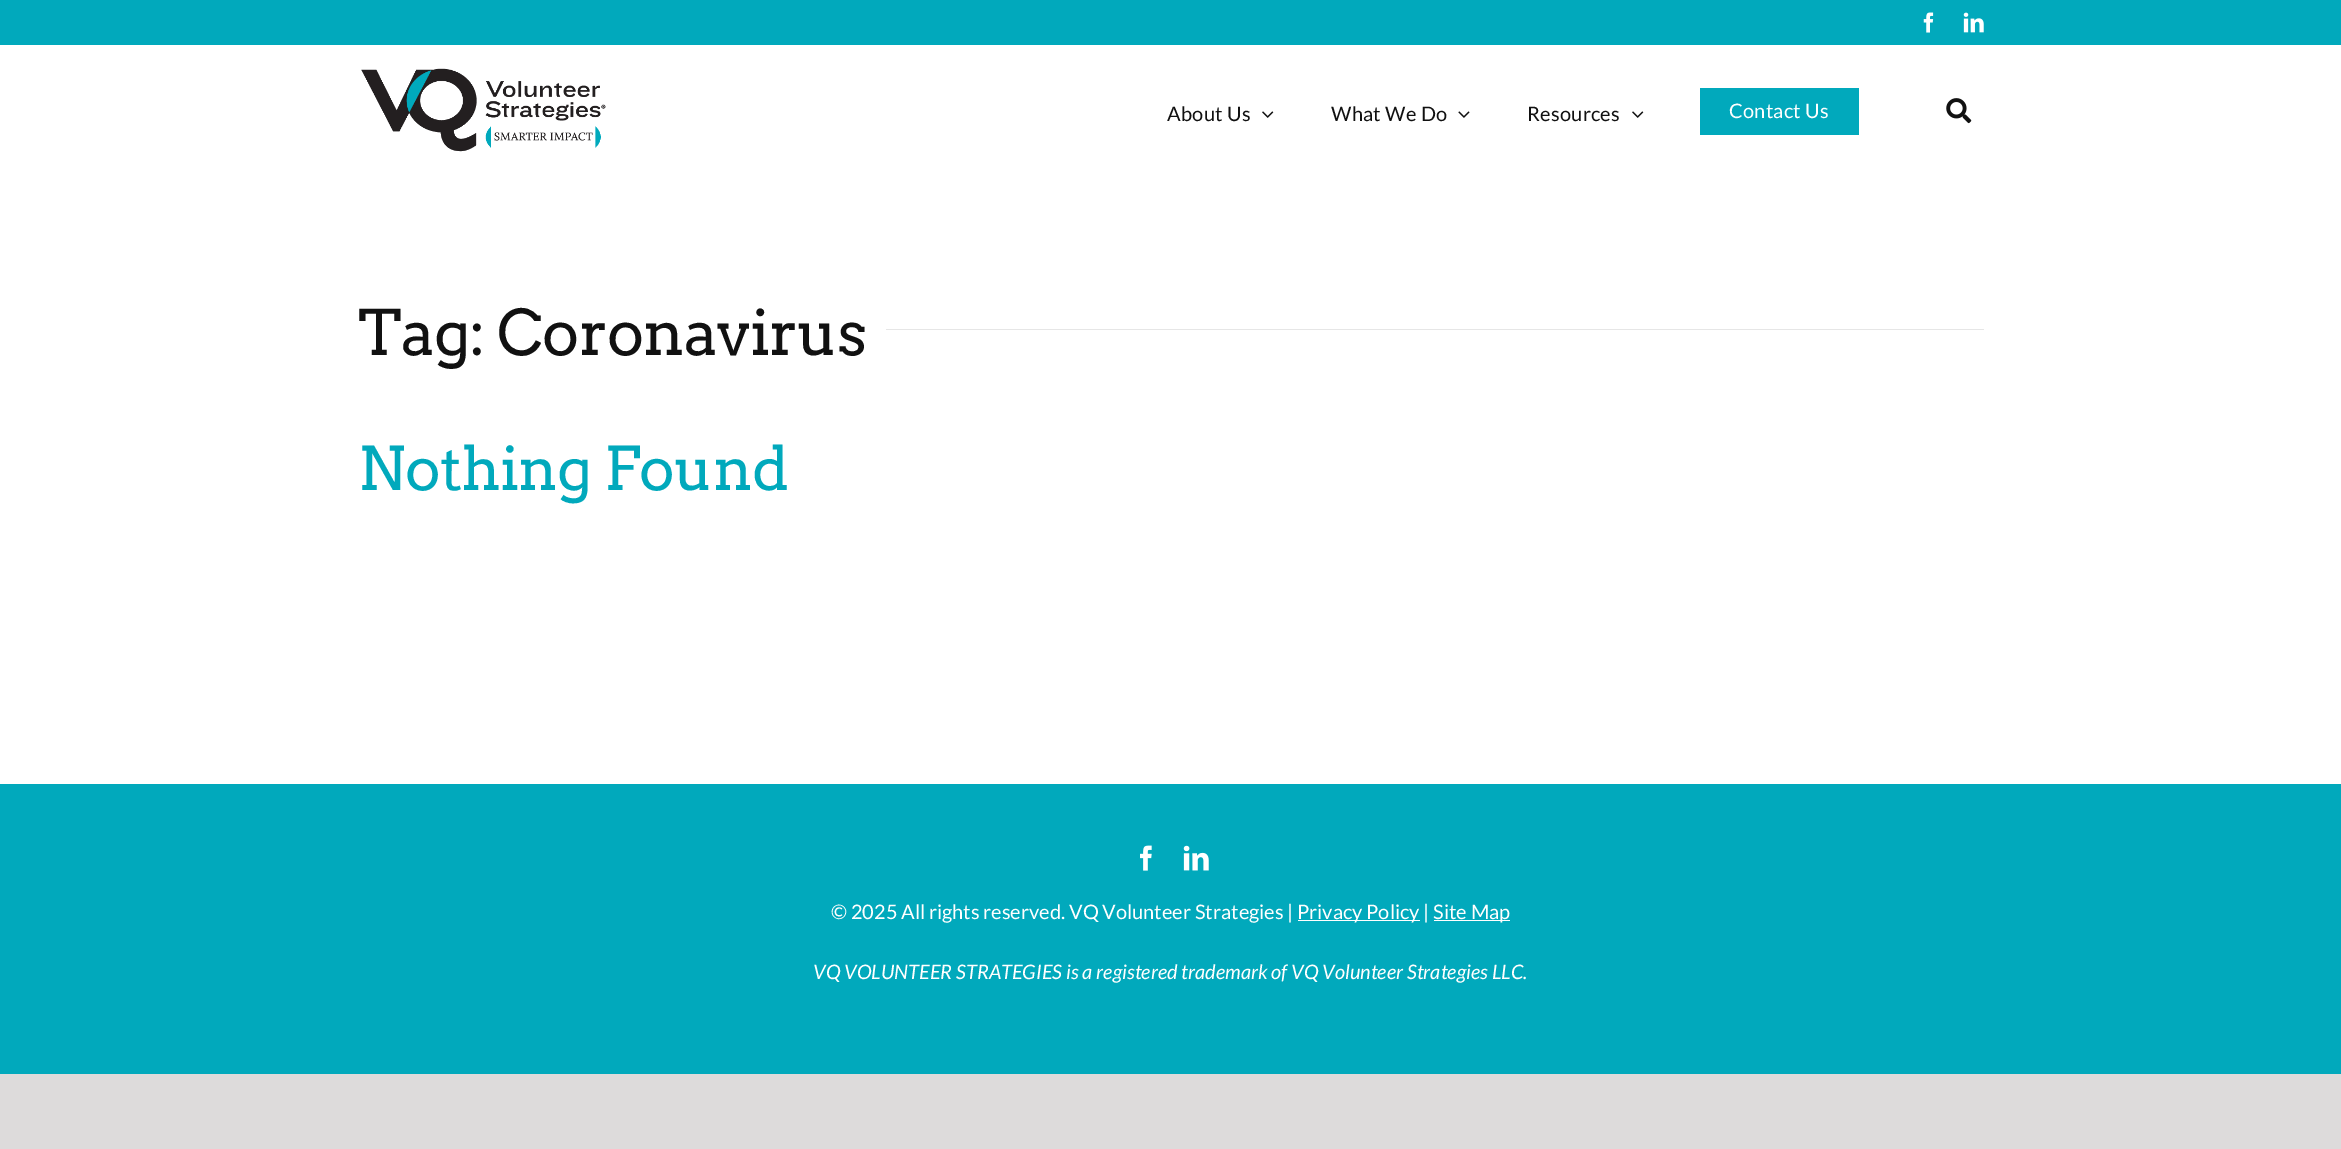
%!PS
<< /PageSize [2341 1149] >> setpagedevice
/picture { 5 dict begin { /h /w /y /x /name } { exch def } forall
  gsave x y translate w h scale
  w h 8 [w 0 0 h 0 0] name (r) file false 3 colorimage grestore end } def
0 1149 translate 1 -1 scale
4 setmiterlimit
0.867 0.859 0.859 setrgbcolor
0 0 2341 1149 rectfill
1 setgray
0 45 2341 739 rectfill
0.004 0.663 0.737 setrgbcolor
0 0 2341 45 rectfill
(img1.rgb) 1923 12 11 21 picture
(img2.rgb) 1963 12 21 21 picture
(img3.rgb) 361 68 245 84 picture
/Lato-Regular [20 0 0 -20 0 0] selectfont
0.067 setgray
1167 121 moveto 0.25 0 (About Us) ashow
(img4.rgb) 1262 111 12 7 picture
1331 121 moveto 0.25 0 (What We Do) ashow
(img5.rgb) 1458 111 12 7 picture
1527 121 moveto 0.25 0 (Resources) ashow
(img4.rgb) 1632 111 12 7 picture
0.004 0.663 0.737 setrgbcolor
1700 88 159 47 rectfill
1 setgray
1729 118 moveto 0.25 0 (Contact Us) ashow
(img6.rgb) 1946 98 26 26 picture
/Arvo-Regular [62.5 0 0 -62.5 0 0] selectfont
0.067 setgray
358 355 moveto -1 0 (Tag: Coronavirus) ashow
0.902 setgray
886 329 1098 1 rectfill
/Arvo-Regular [60 0 0 -60 0 0] selectfont
0.004 0.663 0.737 setrgbcolor
358 490 moveto -0.9 0 (Nothing Found) ashow
0 784 2341 290 rectfill
(img7.rgb) 1140 845 12 26 picture
(img8.rgb) 1183 845 26 26 picture
/Lato-Regular [20 0 0 -20 0 0] selectfont
1 setgray
831 919 moveto (© 2025 All rights reserved. VQ Volunteer Strategies |) show
1298 920 122 1 rectfill
1297 919 moveto (Privacy Policy |) show
1434 920 76 1 rectfill
1433 919 moveto (Site Map) show
/Lato-Italic [20 0 0 -20 0 0] selectfont
813 979 moveto (VQ VOLUNTEER STRATEGIES is a registered trademark of VQ Volunteer Strategies LLC.) show
showpage
